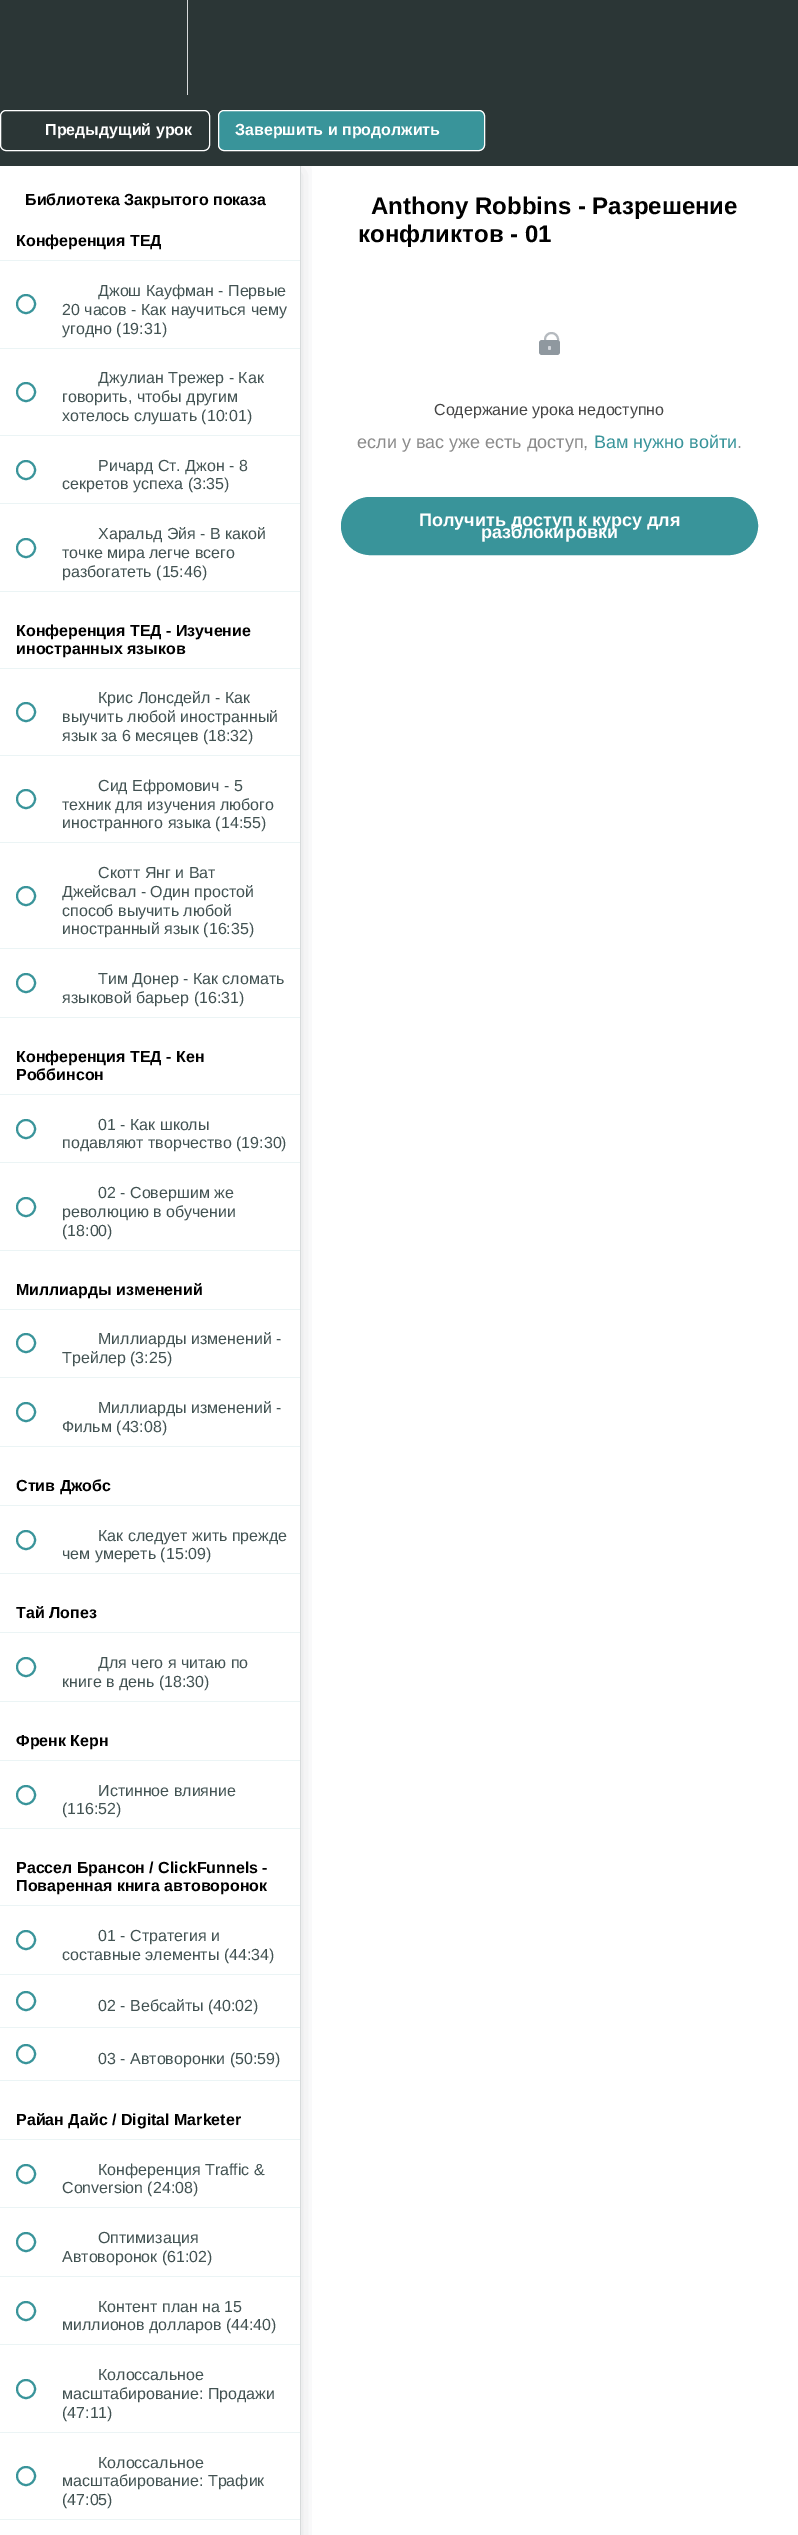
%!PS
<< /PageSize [798 2535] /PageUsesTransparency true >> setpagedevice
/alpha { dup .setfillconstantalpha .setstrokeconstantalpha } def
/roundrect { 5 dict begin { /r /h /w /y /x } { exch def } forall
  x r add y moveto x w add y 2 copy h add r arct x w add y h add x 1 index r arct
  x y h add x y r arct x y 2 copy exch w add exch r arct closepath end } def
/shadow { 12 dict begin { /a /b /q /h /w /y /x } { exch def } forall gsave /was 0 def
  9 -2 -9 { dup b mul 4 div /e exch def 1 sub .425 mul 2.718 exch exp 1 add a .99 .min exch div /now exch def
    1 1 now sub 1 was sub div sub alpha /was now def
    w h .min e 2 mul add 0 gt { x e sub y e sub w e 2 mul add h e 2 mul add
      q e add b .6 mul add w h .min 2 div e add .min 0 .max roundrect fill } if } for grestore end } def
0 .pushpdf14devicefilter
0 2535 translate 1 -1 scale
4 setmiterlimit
1 setgray
0 0 798 2535 rectfill
gsave
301 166 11 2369 rectclip
0.125 0.153 0.176 setrgbcolor
0 172 301 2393 0 10 0.15 shadow
grestore
0.169 0.212 0.212 setrgbcolor
0 0 798 166 rectfill
0.843 0.855 0.859 setrgbcolor
187 0 1 95 rectfill
1 setgray
0.5 110.5 209 40 5.5 roundrect stroke
/LiberationSans-Bold [16 0 0 -16 0 0] selectfont
45 135 moveto (Предыдущий урок) show
0.224 0.58 0.604 setrgbcolor
218.5 110.5 266 40 5.5 roundrect gsave fill grestore
1 setgray
stroke
235 135 moveto (Завершить и продолжить) show
0.843 0.855 0.859 setrgbcolor
300 166 1 2369 rectfill
0 setgray
25 205 moveto (Библиотека Закрытого показа) show
0.922 0.957 0.961 setrgbcolor
0 260 300 1 rectfill
0 setgray
16 246 moveto (Конференция ТЕД) show
0.922 0.957 0.961 setrgbcolor
0 348 300 1 rectfill
0.224 0.58 0.604 setrgbcolor
2 setlinewidth
newpath 26 304 9 0 360 arc closepath stroke
/LiberationSans-Regular [16 0 0 -16 0 0] selectfont
0.259 0.322 0.322 setrgbcolor
98 296 moveto (Джош Кауфман - Первые) show
62 315 moveto (20 часов - Как научиться чему) show
62 334 moveto (угодно \(19:31\)) show
0.922 0.957 0.961 setrgbcolor
0 435 300 1 rectfill
0.224 0.58 0.604 setrgbcolor
newpath 26 392 9 0 360 arc closepath stroke
0.259 0.322 0.322 setrgbcolor
98 383 moveto (Джулиан Трежер - Как) show
62 402 moveto (говорить, чтобы другим) show
62 421 moveto (хотелось слушать \(10:01\)) show
0.922 0.957 0.961 setrgbcolor
0 503 300 1 rectfill
0.224 0.58 0.604 setrgbcolor
newpath 26 470 9 0 360 arc closepath stroke
0.259 0.322 0.322 setrgbcolor
98 471 moveto (Ричард Ст. Джон - 8) show
62 489 moveto (секретов успеха \(3:35\)) show
0.922 0.957 0.961 setrgbcolor
0 591 300 1 rectfill
0.224 0.58 0.604 setrgbcolor
newpath 26 548 9 0 360 arc closepath stroke
0.259 0.322 0.322 setrgbcolor
98 539 moveto (Харальд Эйя - В какой) show
62 558 moveto (точке мира легче всего) show
62 577 moveto (разбогатеть \(15:46\)) show
0.922 0.957 0.961 setrgbcolor
0 668 300 1 rectfill
/LiberationSans-Bold [16 0 0 -16 0 0] selectfont
0 setgray
16 636 moveto (Конференция ТЕД - Изучение) show
16 654 moveto (иностранных языков) show
0.922 0.957 0.961 setrgbcolor
0 755 300 1 rectfill
0.224 0.58 0.604 setrgbcolor
newpath 26 712 9 0 360 arc closepath stroke
/LiberationSans-Regular [16 0 0 -16 0 0] selectfont
0.259 0.322 0.322 setrgbcolor
98 703 moveto (Крис Лонсдейл - Как) show
62 722 moveto (выучить любой иностранный) show
62 741 moveto (язык за 6 месяцев \(18:32\)) show
0.922 0.957 0.961 setrgbcolor
0 842 300 1 rectfill
0.224 0.58 0.604 setrgbcolor
newpath 26 799 9 0 360 arc closepath stroke
0.259 0.322 0.322 setrgbcolor
98 791 moveto (Сид Ефромович - 5) show
62 810 moveto (техник для изучения любого) show
62 828 moveto (иностранного языка \(14:55\)) show
0.922 0.957 0.961 setrgbcolor
0 948 300 1 rectfill
0.224 0.58 0.604 setrgbcolor
newpath 26 896 9 0 360 arc closepath stroke
0.259 0.322 0.322 setrgbcolor
98 878 moveto (Скотт Янг и Ват) show
62 897 moveto (Джейсвал - Один простой) show
62 916 moveto (способ выучить любой) show
62 934 moveto (иностранный язык \(16:35\)) show
0.922 0.957 0.961 setrgbcolor
0 1017 300 1 rectfill
0.224 0.58 0.604 setrgbcolor
newpath 26 983 9 0 360 arc closepath stroke
0.259 0.322 0.322 setrgbcolor
98 984 moveto (Тим Донер - Как сломать) show
62 1003 moveto (языковой барьер \(16:31\)) show
0.922 0.957 0.961 setrgbcolor
0 1094 300 1 rectfill
/LiberationSans-Bold [16 0 0 -16 0 0] selectfont
0 setgray
16 1062 moveto (Конференция ТЕД - Кен) show
16 1080 moveto (Роббинсон) show
0.922 0.957 0.961 setrgbcolor
0 1162 300 1 rectfill
0.224 0.58 0.604 setrgbcolor
newpath 26 1129 9 0 360 arc closepath stroke
/LiberationSans-Regular [16 0 0 -16 0 0] selectfont
0.259 0.322 0.322 setrgbcolor
98 1130 moveto (01 - Как школы) show
62 1148 moveto (подавляют творчество \(19:30\)) show
0.922 0.957 0.961 setrgbcolor
0 1250 300 1 rectfill
0.224 0.58 0.604 setrgbcolor
newpath 26 1207 9 0 360 arc closepath stroke
0.259 0.322 0.322 setrgbcolor
98 1198 moveto (02 - Совершим же) show
62 1217 moveto (революцию в обучении) show
62 1236 moveto (\(18:00\)) show
0.922 0.957 0.961 setrgbcolor
0 1309 300 1 rectfill
/LiberationSans-Bold [16 0 0 -16 0 0] selectfont
0 setgray
16 1295 moveto (Миллиарды изменений) show
0.922 0.957 0.961 setrgbcolor
0 1377 300 1 rectfill
0.224 0.58 0.604 setrgbcolor
newpath 26 1343 9 0 360 arc closepath stroke
/LiberationSans-Regular [16 0 0 -16 0 0] selectfont
0.259 0.322 0.322 setrgbcolor
98 1344 moveto (Миллиарды изменений -) show
62 1363 moveto (Трейлер \(3:25\)) show
0.922 0.957 0.961 setrgbcolor
0 1446 300 1 rectfill
0.224 0.58 0.604 setrgbcolor
newpath 26 1412 9 0 360 arc closepath stroke
0.259 0.322 0.322 setrgbcolor
98 1413 moveto (Миллиарды изменений -) show
62 1432 moveto (Фильм \(43:08\)) show
0.922 0.957 0.961 setrgbcolor
0 1505 300 1 rectfill
/LiberationSans-Bold [16 0 0 -16 0 0] selectfont
0 setgray
16 1491 moveto (Стив Джобс) show
0.922 0.957 0.961 setrgbcolor
0 1573 300 1 rectfill
0.224 0.58 0.604 setrgbcolor
newpath 26 1540 9 0 360 arc closepath stroke
/LiberationSans-Regular [16 0 0 -16 0 0] selectfont
0.259 0.322 0.322 setrgbcolor
98 1541 moveto (Как следует жить прежде) show
62 1559 moveto (чем умереть \(15:09\)) show
0.922 0.957 0.961 setrgbcolor
0 1632 300 1 rectfill
/LiberationSans-Bold [16 0 0 -16 0 0] selectfont
0 setgray
16 1618 moveto (Тай Лопез) show
0.922 0.957 0.961 setrgbcolor
0 1701 300 1 rectfill
0.224 0.58 0.604 setrgbcolor
newpath 26 1667 9 0 360 arc closepath stroke
/LiberationSans-Regular [16 0 0 -16 0 0] selectfont
0.259 0.322 0.322 setrgbcolor
98 1668 moveto (Для чего я читаю по) show
62 1687 moveto (книге в день \(18:30\)) show
0.922 0.957 0.961 setrgbcolor
0 1760 300 1 rectfill
/LiberationSans-Bold [16 0 0 -16 0 0] selectfont
0 setgray
16 1746 moveto (Френк Керн) show
0.922 0.957 0.961 setrgbcolor
0 1828 300 1 rectfill
0.224 0.58 0.604 setrgbcolor
newpath 26 1795 9 0 360 arc closepath stroke
/LiberationSans-Regular [16 0 0 -16 0 0] selectfont
0.259 0.322 0.322 setrgbcolor
98 1796 moveto (Истинное влияние) show
62 1814 moveto (\(116:52\)) show
0.922 0.957 0.961 setrgbcolor
0 1905 300 1 rectfill
/LiberationSans-Bold [16 0 0 -16 0 0] selectfont
0 setgray
16 1873 moveto (Рассел Брансон / ClickFunnels -) show
16 1891 moveto (Поваренная книга автоворонок) show
0.922 0.957 0.961 setrgbcolor
0 1974 300 1 rectfill
0.224 0.58 0.604 setrgbcolor
newpath 26 1940 9 0 360 arc closepath stroke
/LiberationSans-Regular [16 0 0 -16 0 0] selectfont
0.259 0.322 0.322 setrgbcolor
98 1941 moveto (01 - Стратегия и) show
62 1960 moveto (составные элементы \(44:34\)) show
0.922 0.957 0.961 setrgbcolor
0 2027 300 1 rectfill
0.224 0.58 0.604 setrgbcolor
newpath 26 2001 9 0 360 arc closepath stroke
0.259 0.322 0.322 setrgbcolor
98 2011 moveto (02 - Вебсайты \(40:02\)) show
0.922 0.957 0.961 setrgbcolor
0 2080 300 1 rectfill
0.224 0.58 0.604 setrgbcolor
newpath 26 2054 9 0 360 arc closepath stroke
0.259 0.322 0.322 setrgbcolor
98 2064 moveto (03 - Автоворонки \(50:59\)) show
0.922 0.957 0.961 setrgbcolor
0 2139 300 1 rectfill
/LiberationSans-Bold [16 0 0 -16 0 0] selectfont
0 setgray
16 2125 moveto (Райан Дайс / Digital Marketer) show
0.922 0.957 0.961 setrgbcolor
0 2207 300 1 rectfill
0.224 0.58 0.604 setrgbcolor
newpath 26 2174 9 0 360 arc closepath stroke
/LiberationSans-Regular [16 0 0 -16 0 0] selectfont
0.259 0.322 0.322 setrgbcolor
98 2175 moveto (Конференция Traffic &) show
62 2193 moveto (Conversion \(24:08\)) show
0.922 0.957 0.961 setrgbcolor
0 2276 300 1 rectfill
0.224 0.58 0.604 setrgbcolor
newpath 26 2242 9 0 360 arc closepath stroke
0.259 0.322 0.322 setrgbcolor
98 2243 moveto (Оптимизация) show
62 2262 moveto (Автоворонок \(61:02\)) show
0.922 0.957 0.961 setrgbcolor
0 2344 300 1 rectfill
0.224 0.58 0.604 setrgbcolor
newpath 26 2311 9 0 360 arc closepath stroke
0.259 0.322 0.322 setrgbcolor
98 2312 moveto (Контент план на 15) show
62 2330 moveto (миллионов долларов \(44:40\)) show
0.922 0.957 0.961 setrgbcolor
0 2432 300 1 rectfill
0.224 0.58 0.604 setrgbcolor
newpath 26 2389 9 0 360 arc closepath stroke
0.259 0.322 0.322 setrgbcolor
98 2380 moveto (Колоссальное) show
62 2399 moveto (масштабирование: Продажи) show
62 2418 moveto (\(47:11\)) show
0.922 0.957 0.961 setrgbcolor
0 2519 300 1 rectfill
0.224 0.58 0.604 setrgbcolor
newpath 26 2476 9 0 360 arc closepath stroke
0.259 0.322 0.322 setrgbcolor
98 2468 moveto (Колоссальное) show
62 2486 moveto (масштабирование: Трафик) show
62 2505 moveto (\(47:05\)) show
/LiberationSans-Bold [24 0 0 -24 0 0] selectfont
0 setgray
371 214 moveto (Anthony Robbins - Разрешение) show
358 242 moveto (конфликтов - 01) show
0.71 0.729 0.749 setrgbcolor
545 333 13 20 6.5 roundrect stroke
0.561 0.596 0.624 setrgbcolor
539 340 21 15 3 roundrect fill
0.827 0.843 0.863 setrgbcolor
548 346 3 4 1.5 roundrect fill
/LiberationSans-Regular [16 0 0 -16 0 0] selectfont
0.271 setgray
434 415 moveto (Содержание урока недоступно) show
/LiberationSans-Regular [18 0 0 -18 0 0] selectfont
0.545 setgray
357 448 moveto (если у вас уже есть доступ,) show
0.224 0.58 0.604 setrgbcolor
594 448 moveto (Вам нужно войти) show
0.545 setgray
737 448 moveto (.) show
0.224 0.58 0.604 setrgbcolor
341.5 497.5 416 57 28.5 roundrect gsave fill grestore
1 setlinewidth
stroke
/LiberationSans-Bold [18 0 0 -18 0 0] selectfont
1 setgray
419 526 moveto (Получить доступ к курсу для) show
481 538 moveto (разблокировки) show
.poppdf14devicefilter showpage
